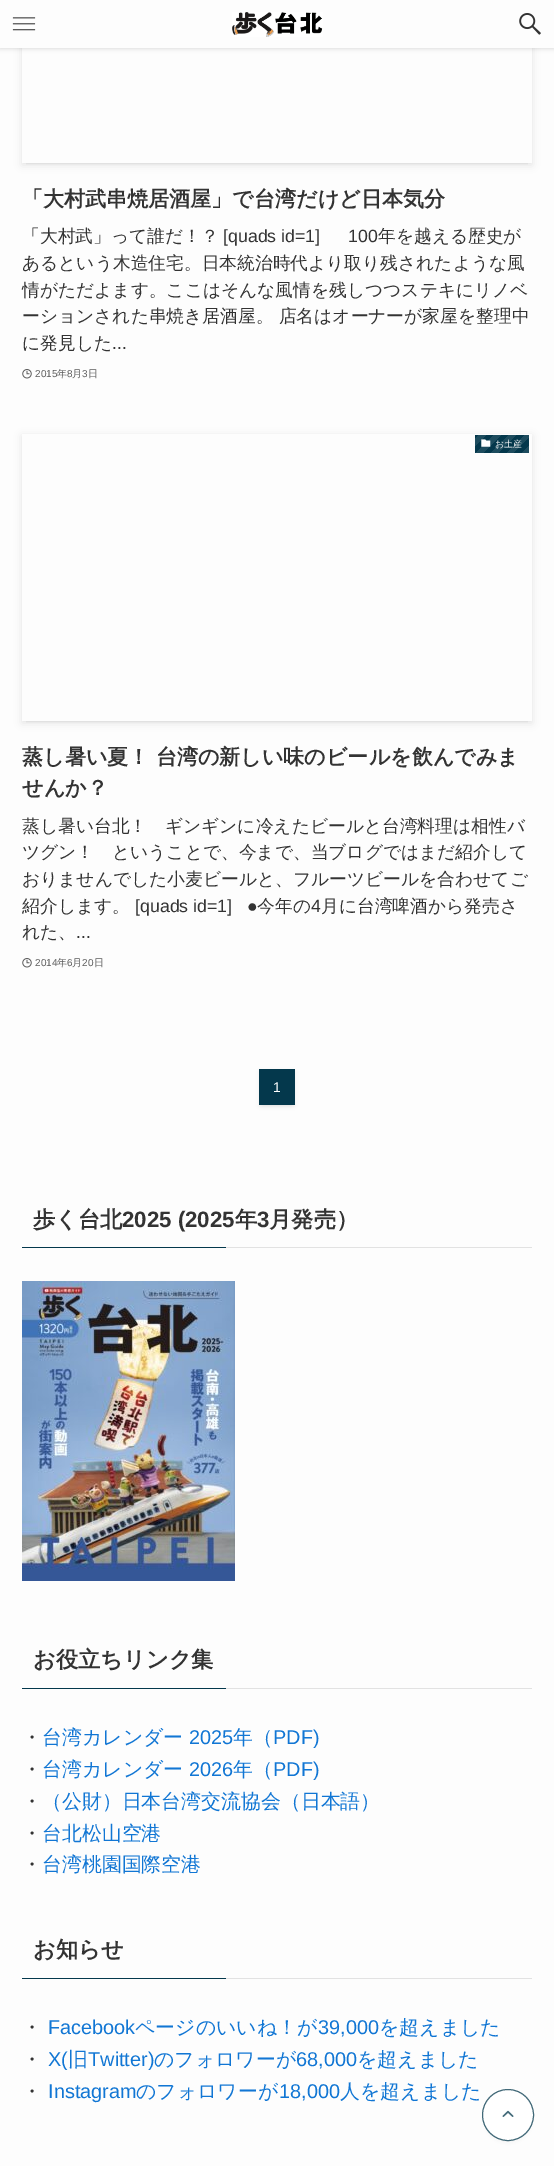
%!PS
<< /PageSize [554 2166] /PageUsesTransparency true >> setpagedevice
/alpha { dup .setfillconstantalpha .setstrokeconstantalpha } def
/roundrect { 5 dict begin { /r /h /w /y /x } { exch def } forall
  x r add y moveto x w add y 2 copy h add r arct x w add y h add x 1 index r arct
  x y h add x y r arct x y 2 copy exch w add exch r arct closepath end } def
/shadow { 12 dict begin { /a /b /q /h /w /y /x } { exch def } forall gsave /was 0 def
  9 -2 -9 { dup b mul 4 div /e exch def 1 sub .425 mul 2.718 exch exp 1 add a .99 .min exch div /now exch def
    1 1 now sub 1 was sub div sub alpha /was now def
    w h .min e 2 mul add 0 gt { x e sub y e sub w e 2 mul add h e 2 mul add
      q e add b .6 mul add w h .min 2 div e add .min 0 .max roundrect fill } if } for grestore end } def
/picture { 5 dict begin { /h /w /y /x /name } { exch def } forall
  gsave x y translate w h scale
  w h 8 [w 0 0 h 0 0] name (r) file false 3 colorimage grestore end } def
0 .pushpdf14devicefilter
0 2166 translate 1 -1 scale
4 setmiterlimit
0.992 setgray
0 0 554 2166 rectfill
0 setgray
0 1 554 48 0 2 0.12 shadow
gsave
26 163 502 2 rectclip
26 -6 502 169 0 2 0.1 shadow
grestore
gsave
newpath 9 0 moveto 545 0 lineto 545 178 lineto 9 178 lineto closepath 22 -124 moveto 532 -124 lineto 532 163 lineto 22 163 lineto closepath eoclip newpath
22 -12 510 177 0 4 0.1 shadow
grestore
0.992 setgray
0 0 554 48 rectfill
(img1.rgb) 12 17 24 14 picture
(img2.rgb) 232 12 91 25 picture
(img3.rgb) 519 13 22 22 picture
/WenQuanYiZenHei-Bold [21.05 0 0 -21.05 0 0] selectfont
0.2 setgray
22 206 moveto (「大村武串焼居酒屋」で台湾だけど日本気分) show
/WenQuanYiZenHei-Medium [17.75 0 0 -17.75 0 0] selectfont
22 242 moveto (「大村武」って誰だ！？) show
/LiberationSans-Regular [17.75 0 0 -17.75 0 0] selectfont
223 242 moveto ([quads id=1]) show
348 242 moveto (100) show
/WenQuanYiZenHei-Medium [17.75 0 0 -17.75 0 0] selectfont
378 242 moveto (年を越える歴史が) show
22 269 moveto (あるという木造住宅。日本統治時代より取り残されたような風) show
22 296 moveto (情がただよます。ここはそんな風情を残しつつステキにリノベ) show
22 322 moveto (ーションされた串焼き居酒屋。 店名はオーナーが家屋を整理中) show
22 349 moveto (に発見した) show
/LiberationSans-Regular [17.75 0 0 -17.75 0 0] selectfont
112 349 moveto (...) show
(img4.rgb) 22 369 10 10 picture
/LiberationSans-Regular [10 0 0 -10 0 0] selectfont
0.357 setgray
35 377 moveto (2015) show
/WenQuanYiZenHei-Medium [10 0 0 -10 0 0] selectfont
57 377 moveto (年) show
/LiberationSans-Regular [10 0 0 -10 0 0] selectfont
67 377 moveto (8) show
/WenQuanYiZenHei-Medium [10 0 0 -10 0 0] selectfont
72 377 moveto (月) show
/LiberationSans-Regular [10 0 0 -10 0 0] selectfont
82 377 moveto (3) show
/WenQuanYiZenHei-Medium [10 0 0 -10 0 0] selectfont
88 377 moveto (日) show
gsave
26 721 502 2 rectclip
0 setgray
26 442 502 279 0 2 0.1 shadow
grestore
gsave
newpath 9 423 moveto 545 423 lineto 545 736 lineto 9 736 lineto closepath 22 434 moveto 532 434 lineto 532 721 lineto 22 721 lineto closepath eoclip newpath
0 setgray
22 436 510 287 0 4 0.1 shadow
grestore
gsave newpath 475 435 moveto 529 435 lineto 529 453 lineto 475 453 lineto closepath clip newpath
<< /ShadingType 2 /ColorSpace /DeviceRGB /Coords [520 462 482 424] /Extend [true true] /Function << /FunctionType 3 /Domain [0 1] /Functions [<< /FunctionType 2 /Domain [0 1] /C0 [0.114 0.298 0.369] /C1 [0.114 0.298 0.369] /N 1 >> << /FunctionType 2 /Domain [0 1] /C0 [0.016 0.22 0.298] /C1 [0.016 0.22 0.298] /N 1 >> << /FunctionType 2 /Domain [0 1] /C0 [0.114 0.298 0.369] /C1 [0.114 0.298 0.369] /N 1 >> << /FunctionType 2 /Domain [0 1] /C0 [0.016 0.22 0.298] /C1 [0.016 0.22 0.298] /N 1 >> << /FunctionType 2 /Domain [0 1] /C0 [0.114 0.298 0.369] /C1 [0.114 0.298 0.369] /N 1 >> << /FunctionType 2 /Domain [0 1] /C0 [0.016 0.22 0.298] /C1 [0.016 0.22 0.298] /N 1 >> << /FunctionType 2 /Domain [0 1] /C0 [0.114 0.298 0.369] /C1 [0.114 0.298 0.369] /N 1 >> << /FunctionType 2 /Domain [0 1] /C0 [0.016 0.22 0.298] /C1 [0.016 0.22 0.298] /N 1 >> << /FunctionType 2 /Domain [0 1] /C0 [0.114 0.298 0.369] /C1 [0.114 0.298 0.369] /N 1 >> << /FunctionType 2 /Domain [0 1] /C0 [0.016 0.22 0.298] /C1 [0.016 0.22 0.298] /N 1 >>] /Bounds [0.1 0.2 0.3 0.4 0.5 0.6 0.7 0.8 0.9] /Encode [0 1 0 1 0 1 0 1 0 1 0 1 0 1 0 1 0 1 0 1] >> >> shfill grestore
(img5.rgb) 481 439 10 8 picture
/WenQuanYiZenHei-Medium [9 0 0 -9 0 0] selectfont
1 setgray
495 447 moveto (お土産) show
/WenQuanYiZenHei-Bold [21.05 0 0 -21.05 0 0] selectfont
0.2 setgray
22 764 moveto (蒸し暑い夏！ 台湾の新しい味のビールを飲んでみま) show
22 795 moveto (せんか？) show
/WenQuanYiZenHei-Medium [17.75 0 0 -17.75 0 0] selectfont
22 832 moveto (蒸し暑い台北！　ギンギンに冷えたビールと台湾料理は相性バ) show
22 858 moveto (ツグン！　ということで、今まで、当ブログではまだ紹介して) show
22 885 moveto (おりませんでした小麦ビールと、フルーツビールを合わせてご) show
22 912 moveto (紹介します。) show
/LiberationSans-Regular [17.75 0 0 -17.75 0 0] selectfont
135 912 moveto ([quads id=1]   ●) show
/WenQuanYiZenHei-Medium [17.75 0 0 -17.75 0 0] selectfont
257 912 moveto (今年の) show
/LiberationSans-Regular [17.75 0 0 -17.75 0 0] selectfont
311 912 moveto (4) show
/WenQuanYiZenHei-Medium [17.75 0 0 -17.75 0 0] selectfont
321 912 moveto (月に台湾啤酒から発売さ) show
22 938 moveto (れた、) show
/LiberationSans-Regular [17.75 0 0 -17.75 0 0] selectfont
76 938 moveto (...) show
(img4.rgb) 22 958 10 10 picture
/LiberationSans-Regular [10 0 0 -10 0 0] selectfont
0.357 setgray
35 966 moveto (2014) show
/WenQuanYiZenHei-Medium [10 0 0 -10 0 0] selectfont
57 966 moveto (年) show
/LiberationSans-Regular [10 0 0 -10 0 0] selectfont
67 966 moveto (6) show
/WenQuanYiZenHei-Medium [10 0 0 -10 0 0] selectfont
72 966 moveto (月) show
/LiberationSans-Regular [10 0 0 -10 0 0] selectfont
82 966 moveto (20) show
/WenQuanYiZenHei-Medium [10 0 0 -10 0 0] selectfont
94 966 moveto (日) show
0 setgray
263 1077 28 28 0 2 0.1 shadow
259 1071 36 36 0 2 0.05 shadow
0.016 0.22 0.298 setrgbcolor
259 1069 36 36 rectfill
/LiberationSans-Regular [14 0 0 -14 0 0] selectfont
1 setgray
273 1092 moveto (1) show
/WenQuanYiZenHei-Bold [22.25 0 0 -22.25 0 0] selectfont
0.2 setgray
33 1227 moveto (歩く台北) show
/LiberationSans-Bold [22.25 0 0 -22.25 0 0] selectfont
122 1227 moveto (2025 \(2025) show
/WenQuanYiZenHei-Bold [22.25 0 0 -22.25 0 0] selectfont
235 1227 moveto (年) show
/LiberationSans-Bold [22.25 0 0 -22.25 0 0] selectfont
257 1227 moveto (3) show
/WenQuanYiZenHei-Bold [22.25 0 0 -22.25 0 0] selectfont
269 1227 moveto (月発売）) show
0.016 0.22 0.298 setrgbcolor
22 1247 204 1 rectfill
0.886 setgray
226 1247 306 1 rectfill
(img6.rgb) 22 1281 213 300 picture
0.2 setgray
33 1667 moveto (お役立ちリンク集) show
0.016 0.22 0.298 setrgbcolor
22 1688 204 1 rectfill
0.886 setgray
226 1688 306 1 rectfill
/WenQuanYiZenHei-Medium [19.9 0 0 -19.9 0 0] selectfont
0.2 setgray
22 1744 moveto (・) show
0.067 0.463 0.831 setrgbcolor
42 1744 moveto (台湾カレンダー) show
/LiberationSans-Regular [19.9 0 0 -19.9 0 0] selectfont
189 1744 moveto (2025) show
/WenQuanYiZenHei-Medium [19.9 0 0 -19.9 0 0] selectfont
233 1744 moveto (年（) show
/LiberationSans-Regular [19.9 0 0 -19.9 0 0] selectfont
273 1744 moveto (PDF\)) show
/WenQuanYiZenHei-Medium [19.9 0 0 -19.9 0 0] selectfont
0.2 setgray
22 1776 moveto (・) show
0.067 0.463 0.831 setrgbcolor
42 1776 moveto (台湾カレンダー) show
/LiberationSans-Regular [19.9 0 0 -19.9 0 0] selectfont
189 1776 moveto (2026) show
/WenQuanYiZenHei-Medium [19.9 0 0 -19.9 0 0] selectfont
233 1776 moveto (年（) show
/LiberationSans-Regular [19.9 0 0 -19.9 0 0] selectfont
273 1776 moveto (PDF\)) show
/WenQuanYiZenHei-Medium [19.9 0 0 -19.9 0 0] selectfont
0.2 setgray
22 1808 moveto (・) show
0.067 0.463 0.831 setrgbcolor
42 1808 moveto (（公財）日本台湾交流協会（日本語）) show
0.2 setgray
22 1840 moveto (・) show
0.067 0.463 0.831 setrgbcolor
42 1840 moveto (台北松山空港) show
0.2 setgray
22 1871 moveto (・) show
0.067 0.463 0.831 setrgbcolor
42 1871 moveto (台湾桃園国際空港) show
/WenQuanYiZenHei-Bold [22.25 0 0 -22.25 0 0] selectfont
0.2 setgray
33 1957 moveto (お知らせ) show
0.016 0.22 0.298 setrgbcolor
22 1978 204 1 rectfill
0.886 setgray
226 1978 306 1 rectfill
/WenQuanYiZenHei-Medium [19.9 0 0 -19.9 0 0] selectfont
0.2 setgray
22 2034 moveto (・) show
/LiberationSans-Regular [19.9 0 0 -19.9 0 0] selectfont
0.067 0.463 0.831 setrgbcolor
48 2034 moveto (Facebook) show
/WenQuanYiZenHei-Medium [19.9 0 0 -19.9 0 0] selectfont
135 2034 moveto (ページのいいね！が) show
/LiberationSans-Regular [19.9 0 0 -19.9 0 0] selectfont
318 2034 moveto (39,000) show
/WenQuanYiZenHei-Medium [19.9 0 0 -19.9 0 0] selectfont
379 2034 moveto (を超えました) show
0.2 setgray
22 2066 moveto (・) show
/LiberationSans-Regular [19.9 0 0 -19.9 0 0] selectfont
0.067 0.463 0.831 setrgbcolor
48 2066 moveto (X\() show
/WenQuanYiZenHei-Medium [19.9 0 0 -19.9 0 0] selectfont
68 2066 moveto (旧) show
/LiberationSans-Regular [19.9 0 0 -19.9 0 0] selectfont
88 2066 moveto (Twitter\)) show
/WenQuanYiZenHei-Medium [19.9 0 0 -19.9 0 0] selectfont
154 2066 moveto (のフォロワーが) show
/LiberationSans-Regular [19.9 0 0 -19.9 0 0] selectfont
296 2066 moveto (68,000) show
/WenQuanYiZenHei-Medium [19.9 0 0 -19.9 0 0] selectfont
357 2066 moveto (を超えました) show
0.2 setgray
22 2098 moveto (・) show
/LiberationSans-Regular [19.9 0 0 -19.9 0 0] selectfont
0.067 0.463 0.831 setrgbcolor
48 2098 moveto (Instagram) show
/WenQuanYiZenHei-Medium [19.9 0 0 -19.9 0 0] selectfont
136 2098 moveto (のフォロワーが) show
/LiberationSans-Regular [19.9 0 0 -19.9 0 0] selectfont
279 2098 moveto (18,000) show
/WenQuanYiZenHei-Medium [19.9 0 0 -19.9 0 0] selectfont
340 2098 moveto (人を超えました) show
0.247 setgray
486 2097 44 44 22 2 0.1 shadow
1 setgray
newpath 508 2115 25.5 0 360 arc closepath gsave fill grestore
0.259 0.412 0.471 setrgbcolor
stroke
(img7.rgb) 502 2110 12 7 picture
.poppdf14devicefilter showpage
